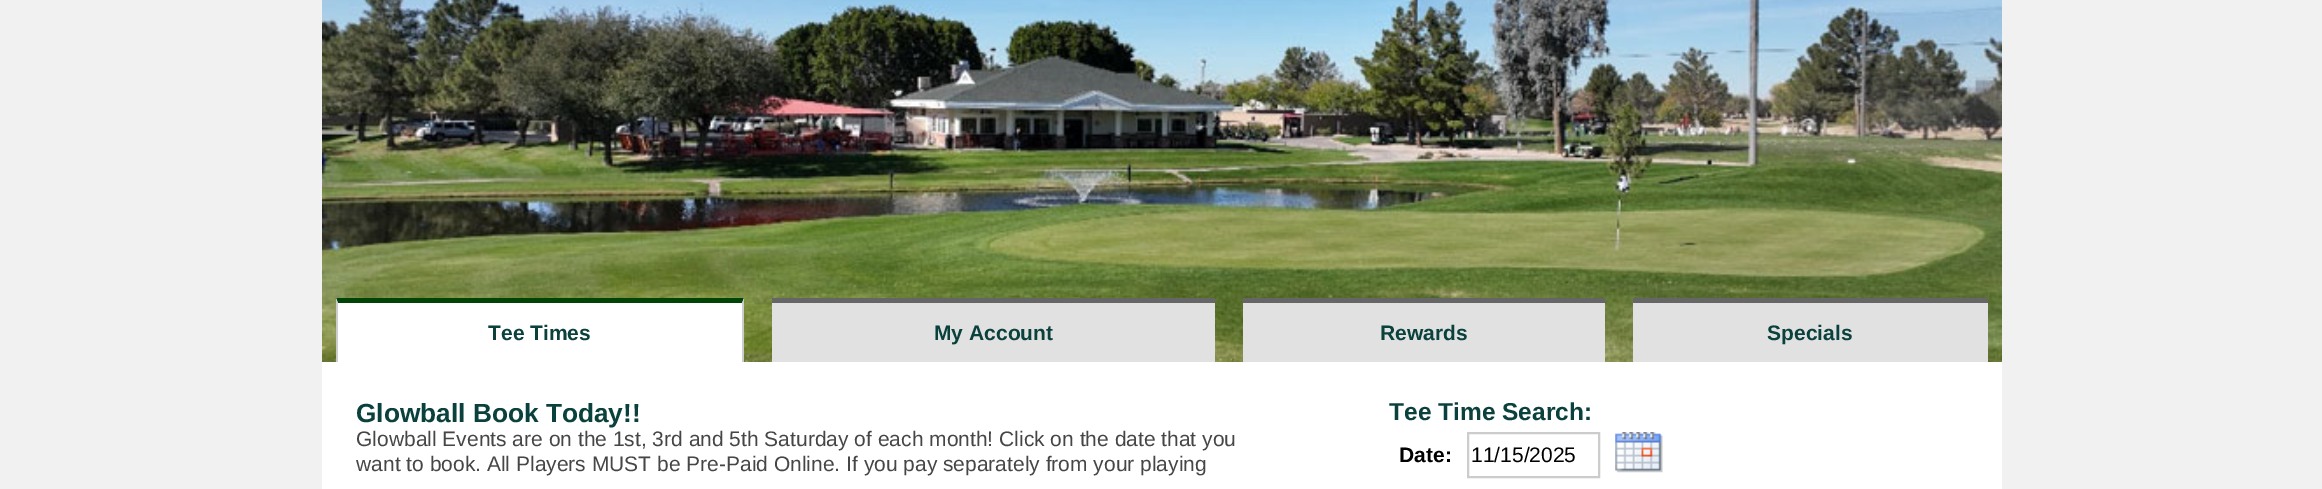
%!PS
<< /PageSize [2322 489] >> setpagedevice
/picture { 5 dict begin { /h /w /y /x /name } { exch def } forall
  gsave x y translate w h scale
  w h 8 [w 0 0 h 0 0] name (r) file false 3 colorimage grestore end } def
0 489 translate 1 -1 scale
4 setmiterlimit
0.945 setgray
0 0 2322 489 rectfill
1 setgray
322 362 1680 127 rectfill
(img1.rgb) 322 0 1680 362 picture
336 298 408 64 rectfill
0.008 0.267 0.024 setrgbcolor
newpath 336 298 moveto 744 298 lineto 742 303 lineto 338 303 lineto closepath fill
0.8 setgray
newpath 744 298 moveto 744 362 lineto 742 362 lineto 742 303 lineto closepath fill
newpath 336 362 moveto 336 298 lineto 338 303 lineto 338 362 lineto closepath fill
/LiberationSans-Bold [21 0 0 -21 0 0] selectfont
0.039 0.255 0.235 setrgbcolor
488 340 moveto (Tee Times) show
0.882 setgray
772 303 443 59 rectfill
0.4 setgray
772 298 443 5 rectfill
0.039 0.255 0.235 setrgbcolor
934 340 moveto (My Account) show
0.882 setgray
1243 303 362 59 rectfill
0.4 setgray
1243 298 362 5 rectfill
0.039 0.255 0.235 setrgbcolor
1380 340 moveto (Rewards) show
0.882 setgray
1633 303 355 59 rectfill
0.4 setgray
1633 298 355 5 rectfill
0.039 0.255 0.235 setrgbcolor
1767 340 moveto (Specials) show
/LiberationSans-Bold [26.25 0 0 -26.25 0 0] selectfont
356 422 moveto (Glowball Book Today!!) show
/LiberationSans-Regular [21 0 0 -21 0 0] selectfont
0.275 setgray
356 446 moveto (Glowball Events are on the 1st, 3rd and 5th Saturday of each month! Click on the date that you) show
356 471 moveto (want to book. All Players MUST be Pre-Paid Online. If you pay separately from your playing) show
/LiberationSans-Bold [24.5 0 0 -24.5 0 0] selectfont
0.039 0.255 0.235 setrgbcolor
1389 420 moveto (Tee Time Search:) show
/LiberationSans-Bold [21 0 0 -21 0 0] selectfont
0 setgray
1399 462 moveto (Date:) show
0.8 setgray
2 setlinewidth
1468 433 131 44 rectstroke
/LiberationSans-Regular [21 0 0 -21 0 0] selectfont
0 setgray
1471 462 moveto (11/15/2025) show
(img2.rgb) 1615 432 48 41 picture
showpage
